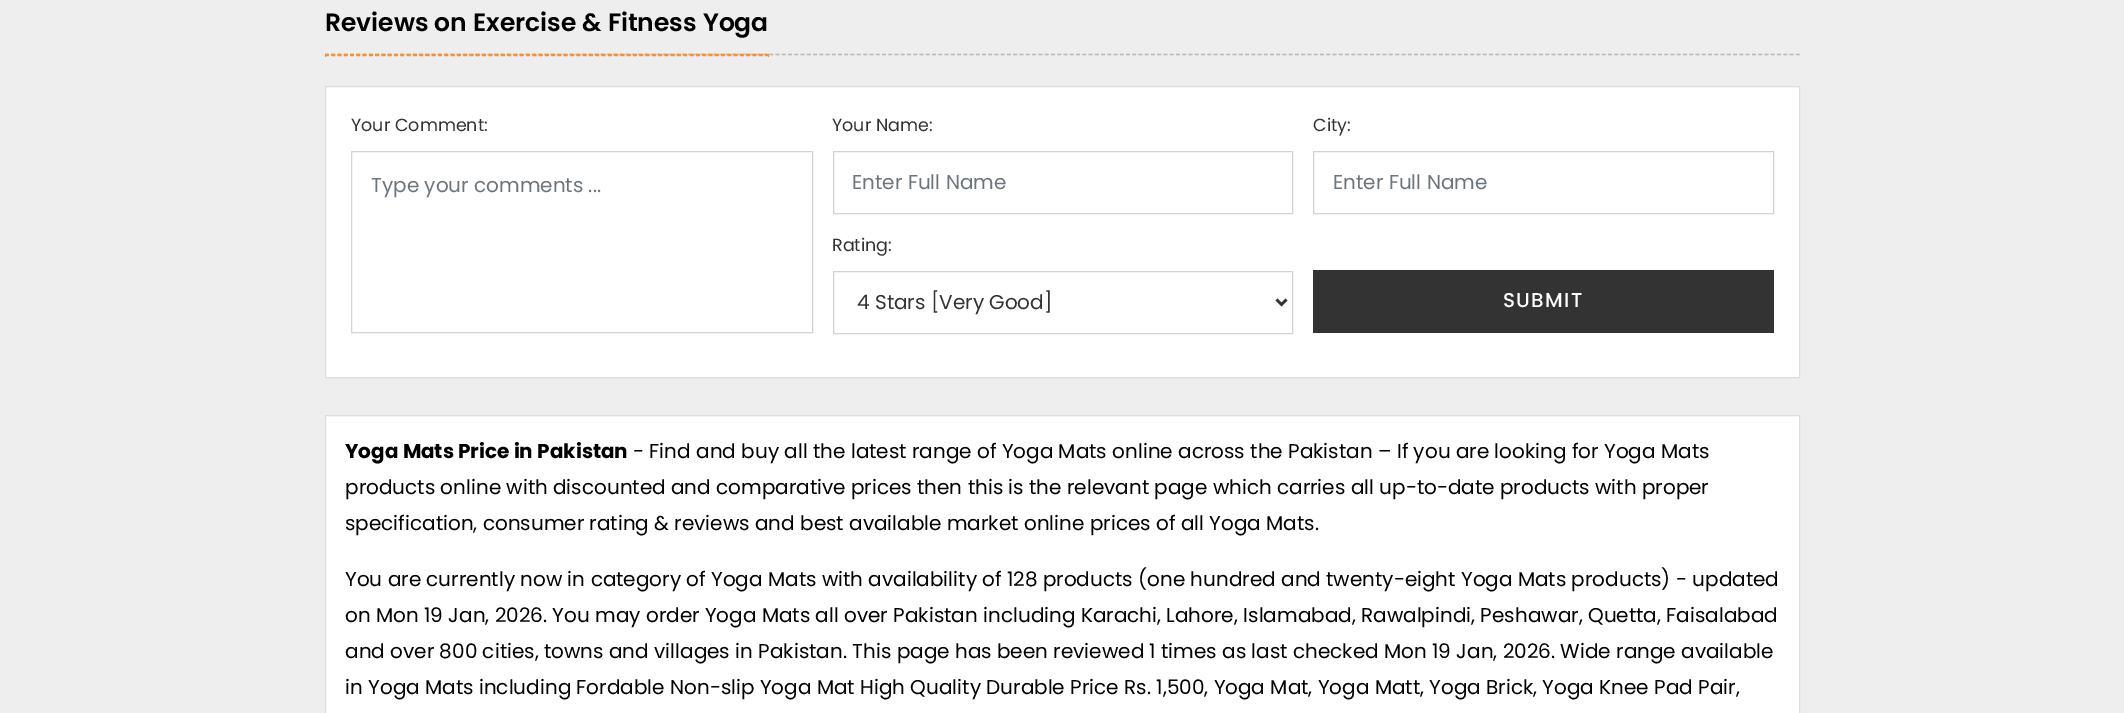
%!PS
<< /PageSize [2124 713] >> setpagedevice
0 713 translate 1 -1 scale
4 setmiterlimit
0.933 setgray
0 0 2124 713 rectfill
0.741 0.706 0.706 setrgbcolor
1.2 setlinewidth
[3.75 2.51] 0 setdash
newpath 325 54.5 moveto 1800 54.5 lineto stroke
/Poppins-SemiBold [25 0 0 -25 0 0] selectfont
0 setgray
325 31 moveto (Reviews on Exercise & Fitness Yoga) show
0.965 0.569 0.192 setrgbcolor
[3.75 2.54] 0 setdash
newpath 325 54.5 moveto 769 54.5 lineto stroke
768 54 1 3 rectfill
newpath 325 55.5 moveto 769 55.5 lineto stroke
325 54 1 3 rectfill
1 setgray
newpath 325.5 86.5 moveto 1799.5 86.5 lineto 1799.5 377.5 lineto 325.5 377.5 lineto closepath gsave fill grestore
0.867 setgray
1 setlinewidth
[] 0 setdash
stroke
/Poppins-Regular [17.5 0 0 -17.5 0 0] selectfont
0.2 setgray
351 131 moveto (Your Comment:) show
0.808 0.831 0.855 setrgbcolor
351.5 151.5 461 181 rectstroke
/Poppins-Regular [20 0 0 -20 0 0] selectfont
0.424 0.459 0.49 setrgbcolor
371 192 moveto (Type your comments ...) show
/Poppins-Regular [17.5 0 0 -17.5 0 0] selectfont
0.2 setgray
832 131 moveto (Your Name:) show
0.808 0.831 0.855 setrgbcolor
833.5 151.5 459 62 rectstroke
/Poppins-Regular [20 0 0 -20 0 0] selectfont
0.424 0.459 0.49 setrgbcolor
852 189 moveto (Enter Full Name) show
/Poppins-Regular [17.5 0 0 -17.5 0 0] selectfont
0.2 setgray
1313 131 moveto (City:) show
0.808 0.831 0.855 setrgbcolor
1313.5 151.5 460 62 rectstroke
/Poppins-Regular [20 0 0 -20 0 0] selectfont
0.424 0.459 0.49 setrgbcolor
1333 189 moveto (Enter Full Name) show
/Poppins-Regular [17.5 0 0 -17.5 0 0] selectfont
0.2 setgray
832 251 moveto (Rating:) show
0.808 0.831 0.855 setrgbcolor
833.5 271.5 459 62 rectstroke
0.2 setgray
2.5 setlinewidth
newpath 1276.5 299.5 moveto 1281.5 304.5 lineto 1286.5 299.5 lineto stroke
/Poppins-Regular [20 0 0 -20 0 0] selectfont
857 309 moveto (4 Stars [Very Good]) show
1313 270 461 63 rectfill
/Poppins-Medium [20 0 0 -20 0 0] selectfont
1 setgray
1503 307 moveto 1.25 0 (SUBMIT) ashow
newpath 325.5 415.5 moveto 1799.5 415.5 lineto 1799.5 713.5 lineto 325.5 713.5 lineto closepath gsave fill grestore
0.867 setgray
1 setlinewidth
stroke
/Poppins-Bold [20 0 0 -20 0 0] selectfont
0 setgray
345 458 moveto (Yoga Mats Price in Pakistan) show
/Poppins-Regular [20 0 0 -20 0 0] selectfont
633 458 moveto (- Find and buy all the latest range of Yoga Mats online across the Pakistan – If you are looking for Yoga Mats) show
345 494 moveto (products online with discounted and comparative prices then this is the relevant page which carries all up-to-date products with proper) show
345 530 moveto (specification, consumer rating & reviews and best available market online prices of all Yoga Mats.) show
345 586 moveto (You are currently now in category of Yoga Mats with availability of 128 products \(one hundred and twenty-eight Yoga Mats products\) - updated) show
345 622 moveto (on Mon 19 Jan, 2026. You may order Yoga Mats all over Pakistan including Karachi, Lahore, Islamabad, Rawalpindi, Peshawar, Quetta, Faisalabad) show
345 658 moveto (and over 800 cities, towns and villages in Pakistan. This page has been reviewed 1 times as last checked Mon 19 Jan, 2026. Wide range available) show
345 694 moveto (in Yoga Mats including Fordable Non-slip Yoga Mat High Quality Durable Price Rs. 1,500, Yoga Mat, Yoga Matt, Yoga Brick, Yoga Knee Pad Pair,) show
showpage
